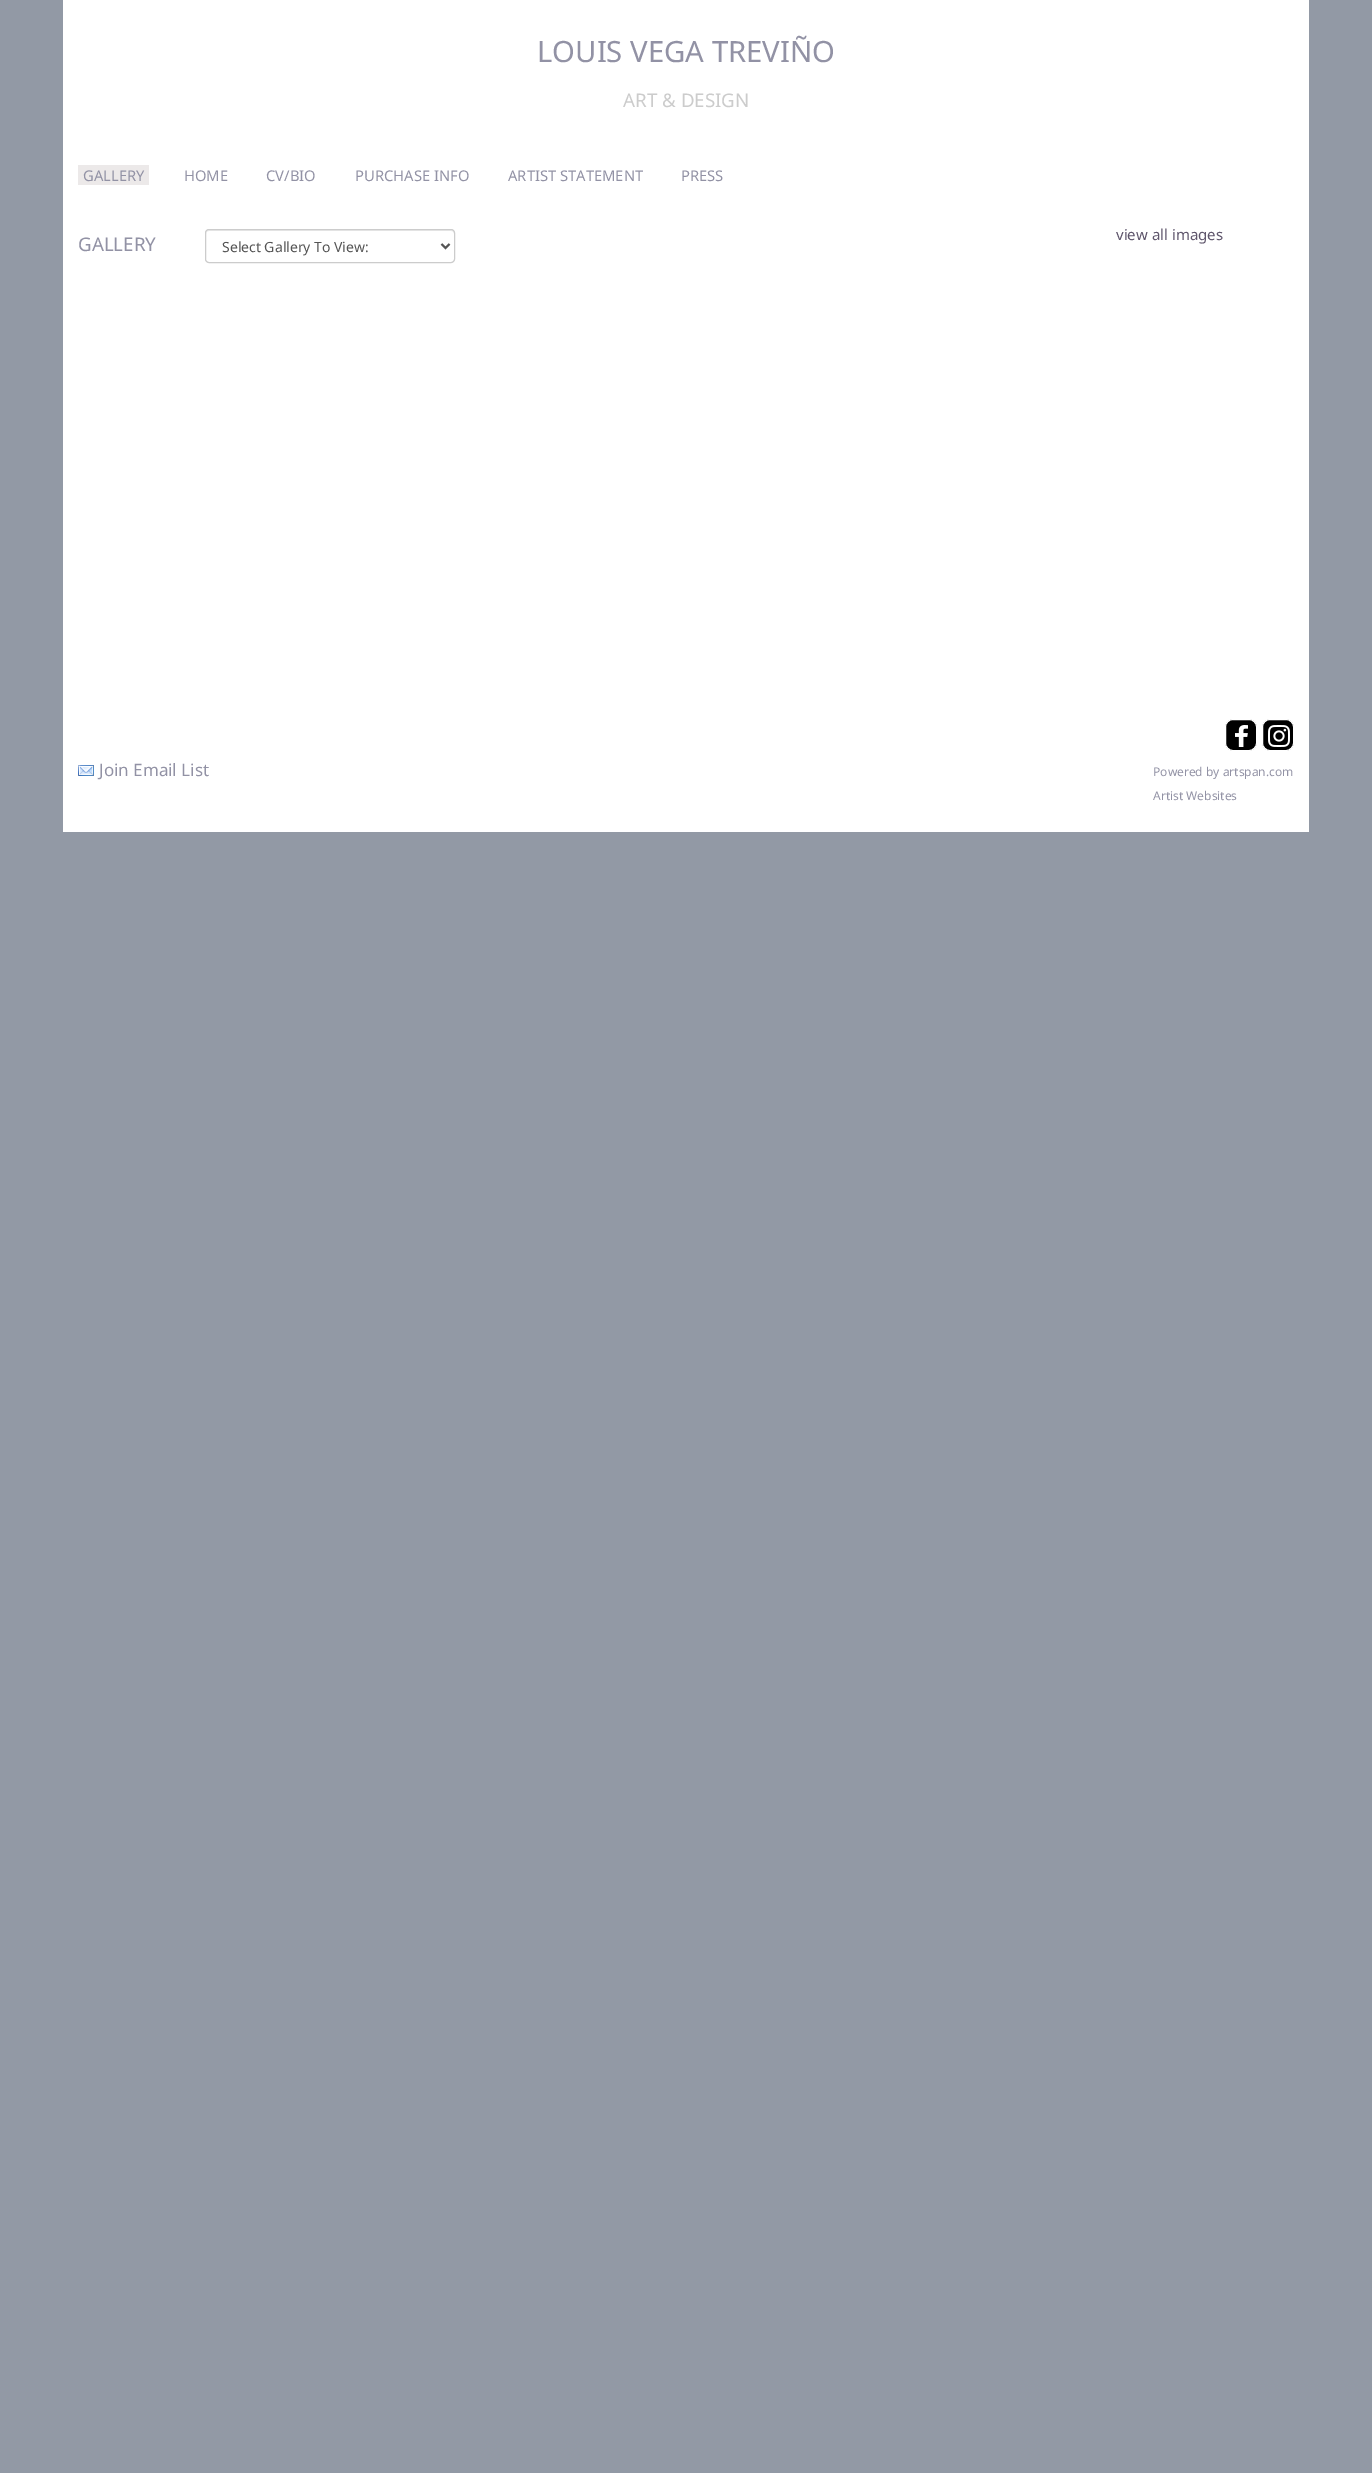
%!PS
<< /PageSize [1372 2473] >> setpagedevice
/roundrect { 5 dict begin { /r /h /w /y /x } { exch def } forall
  x r add y moveto x w add y 2 copy h add r arct x w add y h add x 1 index r arct
  x y h add x y r arct x y 2 copy exch w add exch r arct closepath end } def
/picture { 5 dict begin { /h /w /y /x /name } { exch def } forall
  gsave x y translate w h scale
  w h 8 [w 0 0 h 0 0] name (r) file false 3 colorimage grestore end } def
0 2473 translate 1 -1 scale
4 setmiterlimit
0.573 0.6 0.647 setrgbcolor
0 0 1372 2473 rectfill
1 setgray
63 0 1246 832 rectfill
/NotoSans-Regular [29.25 0 0 -29.25 0 0] selectfont
0.573 0.573 0.647 setrgbcolor
537 62 moveto (LOUIS VEGA TREVIÑO) show
/NotoSans-Regular [18.75 0 0 -18.75 0 0] selectfont
0.8 setgray
623 107 moveto (ART & DESIGN) show
0.925 0.914 0.914 setrgbcolor
78 165 71 20 rectfill
/NotoSans-Regular [14.75 0 0 -14.75 0 0] selectfont
0.573 0.573 0.647 setrgbcolor
83 181 moveto (GALLERY) show
184 181 moveto (HOME) show
266 181 moveto (CV/BIO) show
355 181 moveto (PURCHASE INFO) show
508 181 moveto (ARTIST STATEMENT) show
681 181 moveto (PRESS) show
/NotoSans-Regular [18.75 0 0 -18.75 0 0] selectfont
78 251 moveto (GALLERY) show
0.925 setgray
newpath 209 231 moveto 451 231 lineto 453 231 454 232 454 234 curveto 454 232 453 230 451 230 curveto 209 230 lineto 207 230 206 232 206 234 curveto 206 232 207 231 209 231 curveto closepath fill
0.8 setgray
205.5 229.5 249 33 3.5 roundrect stroke
0.333 setgray
2 setlinewidth
newpath 441.5 244 moveto 445.5 248 lineto 449.5 244 lineto stroke
/NotoSans-Regular [14 0 0 -14 0 0] selectfont
222 252 moveto (Select Gallery To View:) show
/NotoSans-Regular [15 0 0 -15 0 0] selectfont
0.373 0.337 0.424 setrgbcolor
1116 240 moveto (view all images) show
0 setgray
1225.5 719.5 31 31 7.5 roundrect gsave fill grestore
1 setgray
1 setlinewidth
stroke
(img1.rgb) 1235 725 13 22 picture
0 setgray
1262.5 719.5 31 31 7.5 roundrect gsave fill grestore
1 setgray
stroke
(img2.rgb) 1268 725 22 22 picture
(img3.rgb) 78 765 16 11 picture
/NotoSans-Regular [17 0 0 -17 0 0] selectfont
0.573 0.573 0.647 setrgbcolor
99 776 moveto (Join Email List) show
/NotoSans-Regular [12 0 0 -12 0 0] selectfont
1153 776 moveto (Powered by artspan.com) show
1153 800 moveto (Artist Websites) show
showpage
